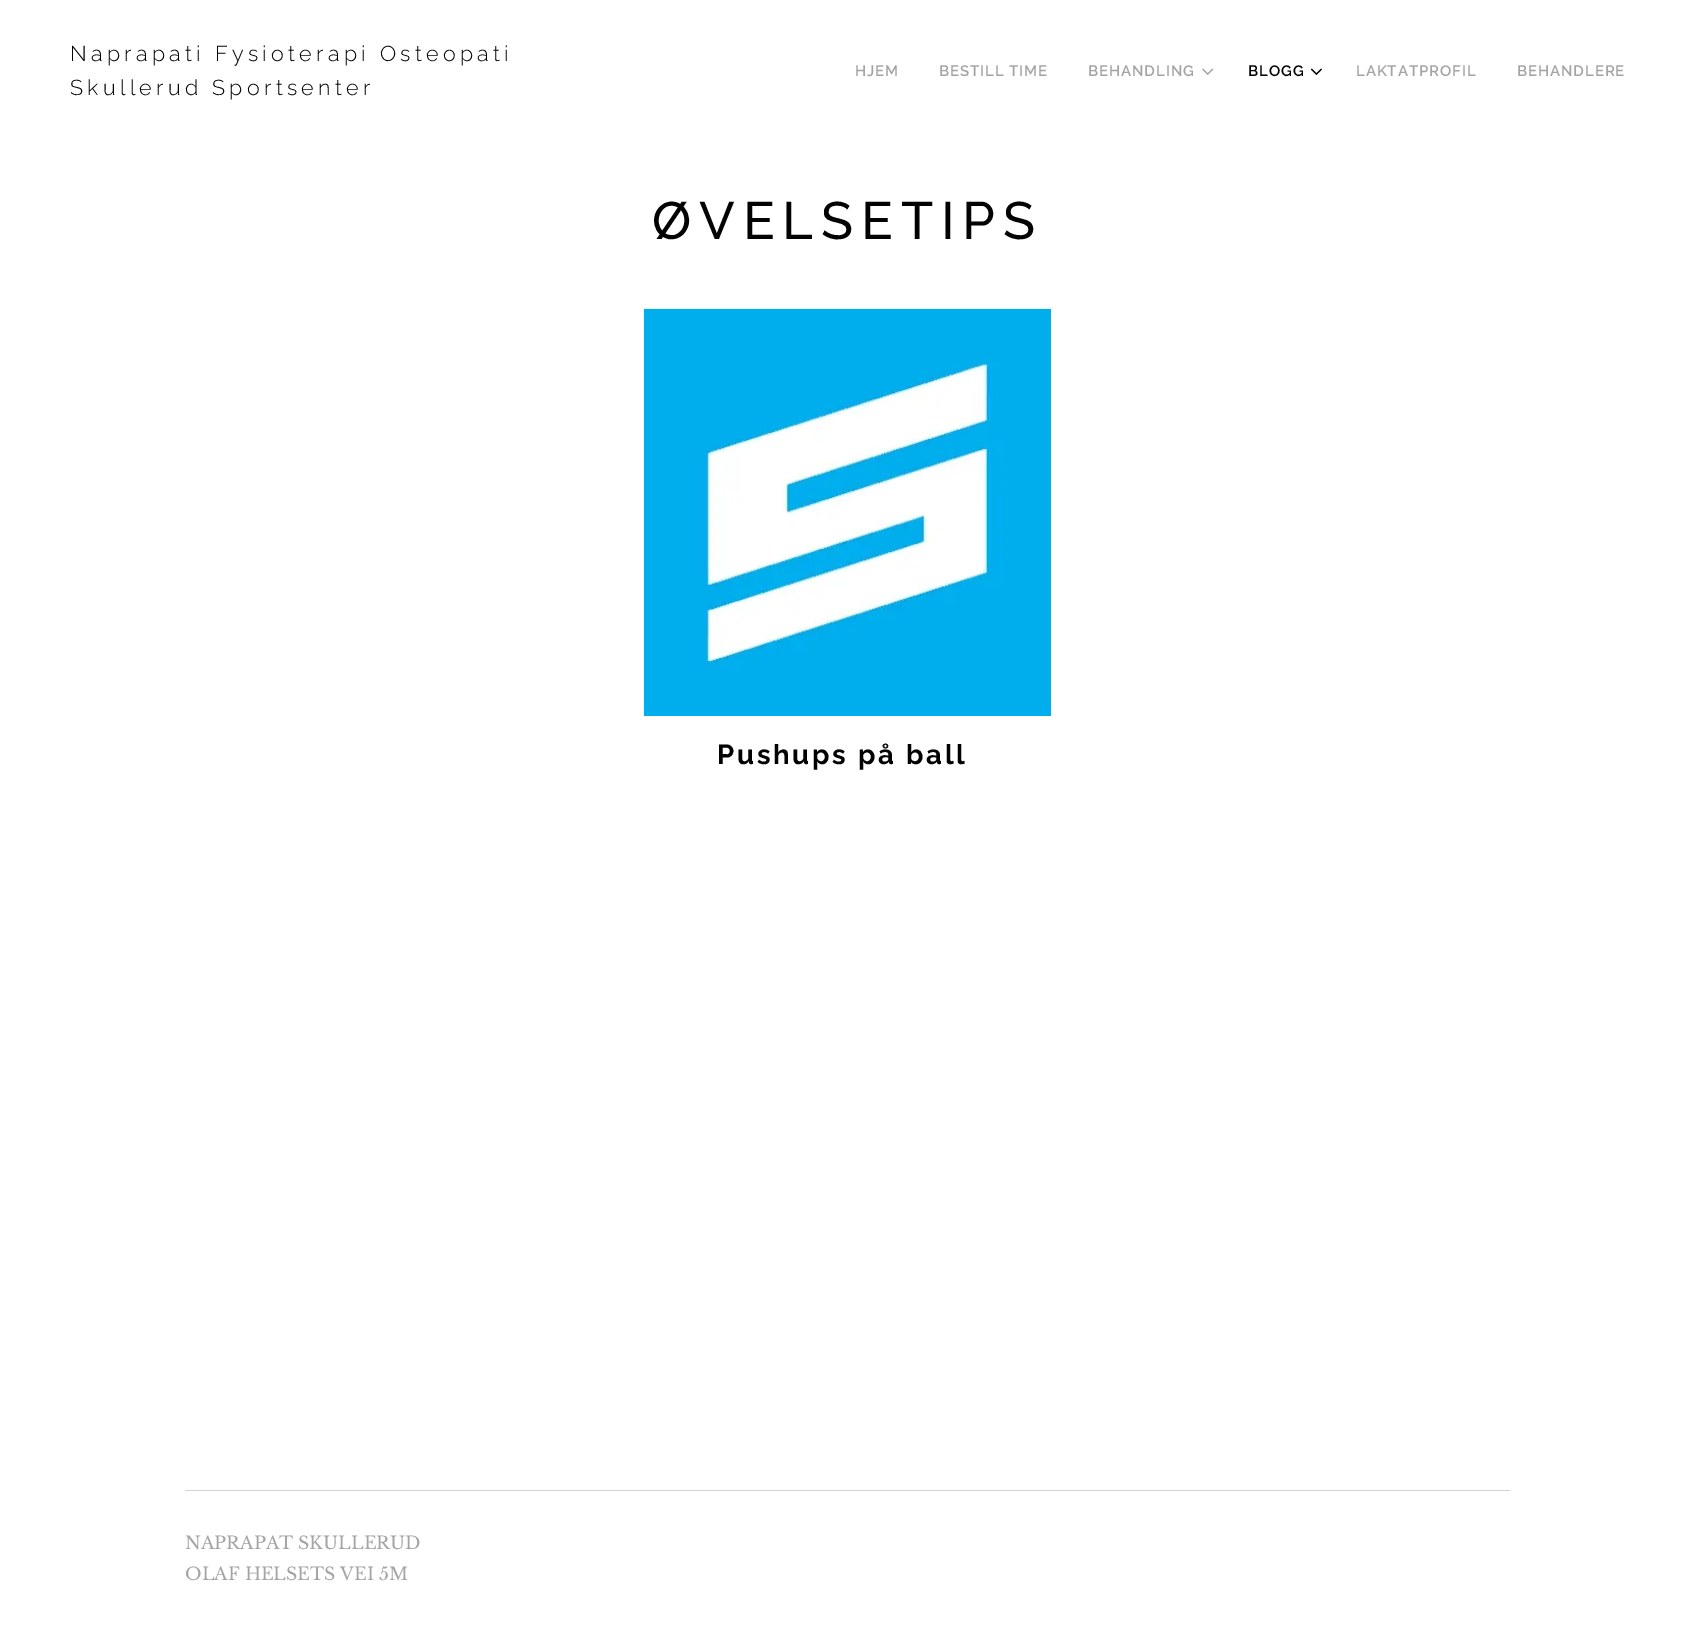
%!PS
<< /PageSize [1694 1646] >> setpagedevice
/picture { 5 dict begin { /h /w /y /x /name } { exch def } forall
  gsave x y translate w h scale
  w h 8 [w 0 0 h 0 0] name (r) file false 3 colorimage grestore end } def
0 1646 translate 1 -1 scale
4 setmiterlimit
1 setgray
0 0 1694 1646 rectfill
/Raleway-Light [21.5 0 0 -21.5 0 0] selectfont
0.012 setgray
70 61 moveto 4.3 0 (Naprapati Fysioterapi Osteopati) ashow
70 95 moveto 4.3 0 (Skullerud Sportsenter) ashow
/Raleway-SemiBold [15 0 0 -15 0 0] selectfont
0.643 setgray
855 76 moveto 0.9 0 (HJEM) ashow
939 76 moveto 0.9 0 (BESTILL TIME) ashow
1088 76 moveto 0.9 0 (BEHANDLING) ashow
(img1.rgb) 1202 68 12 7 picture
0.012 setgray
1248 76 moveto 0.9 0 (BLOGG) ashow
(img2.rgb) 1310 68 12 7 picture
0.643 setgray
1356 76 moveto 0.9 0 (LAKTATPROFIL) ashow
1517 76 moveto 0.9 0 (BEHANDLERE) ashow
/Raleway-Medium [52.5 0 0 -52.5 0 0] selectfont
0.012 setgray
652 239 moveto 7.9 0 (ØVELSETIPS) ashow
(img3.rgb) 643 308 408 408 picture
/Raleway-Bold [27.5 0 0 -27.5 0 0] selectfont
717 764 moveto 2.75 0 (Pushups på ball) ashow
0.831 setgray
185 1490 1325 1 rectfill
/LibreBaskerville-Regular [17.5 0 0 -17.5 0 0] selectfont
0.643 setgray
185 1549 moveto (NAPRAPAT SKULLERUD) show
185 1580 moveto (OLAF HELSETS VEI 5M) show
showpage
